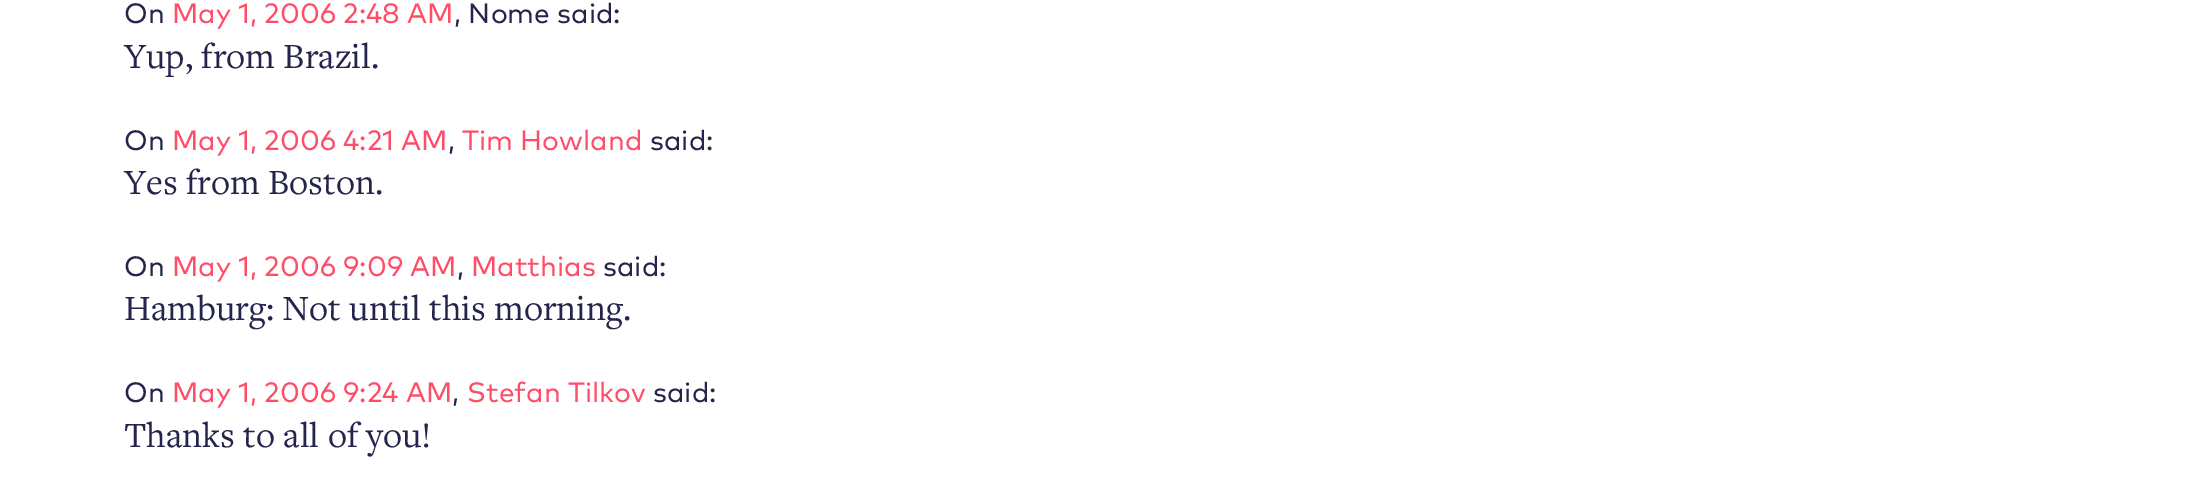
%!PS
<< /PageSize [2190 494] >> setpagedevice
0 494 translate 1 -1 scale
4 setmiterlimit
1 setgray
0 0 2190 494 rectfill
/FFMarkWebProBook-Regular [28 0 0 -28 0 0] selectfont
0.141 0.141 0.298 setrgbcolor
124 23 moveto (On) show
1 0.302 0.404 setrgbcolor
172 23 moveto (May 1, 2006 2:48 AM) show
0.141 0.141 0.298 setrgbcolor
454 23 moveto (, Nome said:) show
/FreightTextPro-Regular [36.75 0 0 -36.75 0 0] selectfont
124 68 moveto (Yup, from Brazil.) show
/FFMarkWebProBook-Regular [28 0 0 -28 0 0] selectfont
124 150 moveto (On) show
1 0.302 0.404 setrgbcolor
172 150 moveto (May 1, 2006 4:21 AM) show
0.141 0.141 0.298 setrgbcolor
448 150 moveto (,) show
1 0.302 0.404 setrgbcolor
462 150 moveto (Tim Howland) show
0.141 0.141 0.298 setrgbcolor
650 150 moveto (said:) show
/FreightTextPro-Regular [36.75 0 0 -36.75 0 0] selectfont
124 194 moveto (Yes from Boston.) show
/FFMarkWebProBook-Regular [28 0 0 -28 0 0] selectfont
124 276 moveto (On) show
1 0.302 0.404 setrgbcolor
172 276 moveto (May 1, 2006 9:09 AM) show
0.141 0.141 0.298 setrgbcolor
457 276 moveto (,) show
1 0.302 0.404 setrgbcolor
471 276 moveto (Matthias) show
0.141 0.141 0.298 setrgbcolor
603 276 moveto (said:) show
/FreightTextPro-Regular [36.75 0 0 -36.75 0 0] selectfont
124 320 moveto (Hamburg: Not until this morning.) show
/FFMarkWebProBook-Regular [28 0 0 -28 0 0] selectfont
124 402 moveto (On) show
1 0.302 0.404 setrgbcolor
172 402 moveto (May 1, 2006 9:24 AM) show
0.141 0.141 0.298 setrgbcolor
452 402 moveto (,) show
1 0.302 0.404 setrgbcolor
467 402 moveto (Stefan Tilkov) show
0.141 0.141 0.298 setrgbcolor
653 402 moveto (said:) show
/FreightTextPro-Regular [36.75 0 0 -36.75 0 0] selectfont
124 447 moveto (Thanks to all of you!) show
showpage
